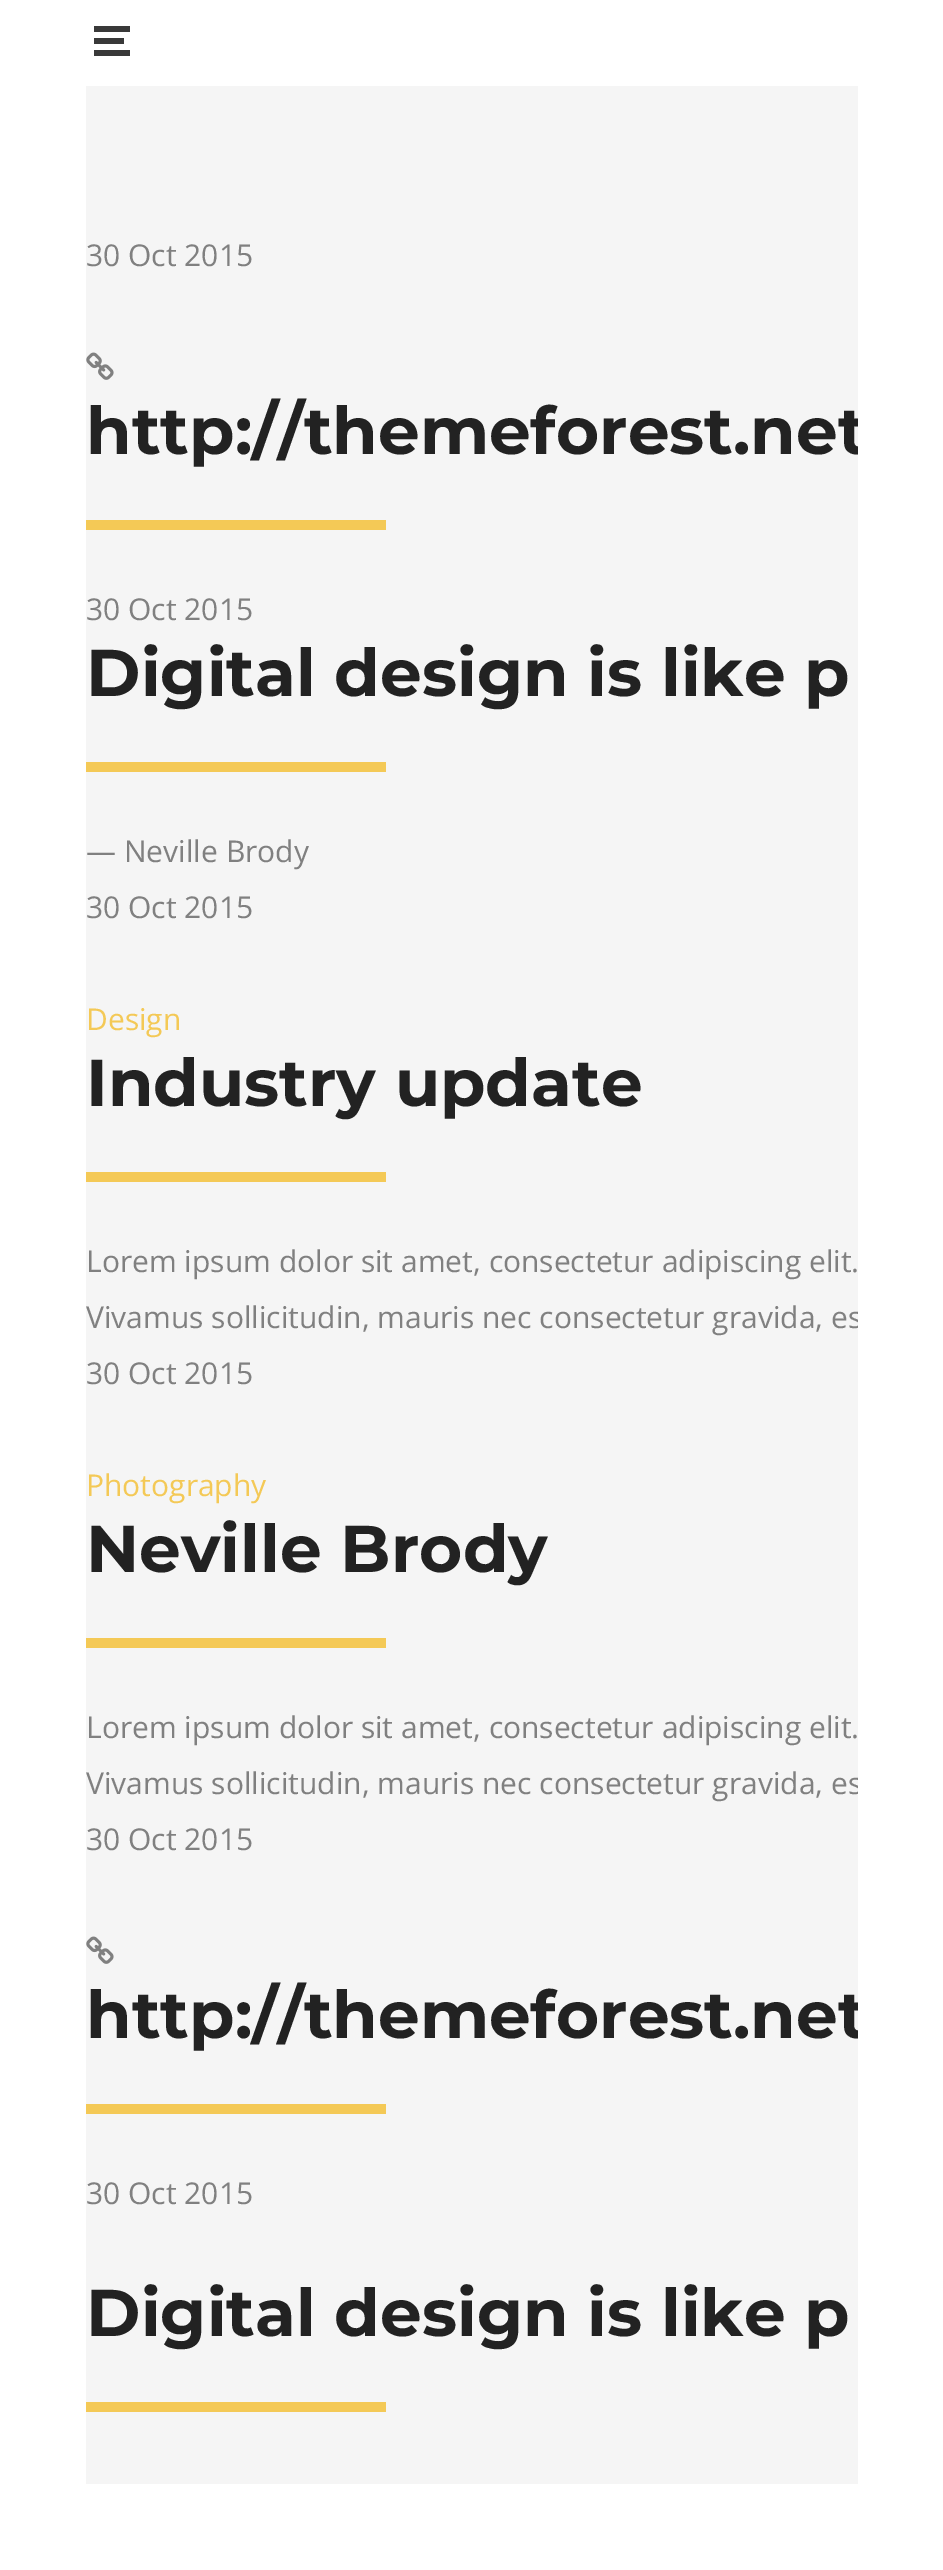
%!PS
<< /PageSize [943 2570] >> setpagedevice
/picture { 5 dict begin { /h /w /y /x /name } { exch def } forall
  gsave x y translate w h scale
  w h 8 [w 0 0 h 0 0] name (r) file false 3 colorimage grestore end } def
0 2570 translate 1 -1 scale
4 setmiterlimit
0.961 setgray
0 0 943 2570 rectfill
1 setgray
86 0 772 86 rectfill
0.224 setgray
94 26 36 6 rectfill
94 38 30 6 rectfill
94 50 36 6 rectfill
1 setgray
0 0 86 2484 rectfill
/Montserrat-Bold [66 0 0 -66 0 0] selectfont
0.133 setgray
86 454 moveto (http://themeforest.net) show
/OpenSans-Regular [30 0 0 -30 0 0] selectfont
0.502 setgray
86 1328 moveto (Vivamus sollicitudin, mauris nec consectetur gravida, es) show
86 1794 moveto (Vivamus sollicitudin, mauris nec consectetur gravida, es) show
/Montserrat-Bold [66 0 0 -66 0 0] selectfont
0.133 setgray
86 2038 moveto (http://themeforest.net) show
1 setgray
858 0 85 2484 rectfill
/OpenSans-Regular [30 0 0 -30 0 0] selectfont
0.502 setgray
86 266 moveto (30 Oct 2015) show
(img1.rgb) 86 352 28 28 picture
0.957 0.788 0.337 setrgbcolor
86 520 300 10 rectfill
0.502 setgray
86 620 moveto (30 Oct 2015) show
/Montserrat-Bold [66 0 0 -66 0 0] selectfont
0.133 setgray
86 696 moveto (Digital design is like p) show
0.957 0.788 0.337 setrgbcolor
86 762 300 10 rectfill
/OpenSans-Regular [30 0 0 -30 0 0] selectfont
0.502 setgray
86 862 moveto (— Neville Brody) show
86 918 moveto (30 Oct 2015) show
0.957 0.788 0.337 setrgbcolor
86 1030 moveto (Design) show
/Montserrat-Bold [66 0 0 -66 0 0] selectfont
0.133 setgray
86 1106 moveto (Industry update) show
0.957 0.788 0.337 setrgbcolor
86 1172 300 10 rectfill
/OpenSans-Regular [30 0 0 -30 0 0] selectfont
0.502 setgray
86 1272 moveto (Lorem ipsum dolor sit amet, consectetur adipiscing elit.) show
86 1384 moveto (30 Oct 2015) show
0.957 0.788 0.337 setrgbcolor
86 1496 moveto (Photography) show
/Montserrat-Bold [66 0 0 -66 0 0] selectfont
0.133 setgray
86 1572 moveto (Neville Brody) show
0.957 0.788 0.337 setrgbcolor
86 1638 300 10 rectfill
/OpenSans-Regular [30 0 0 -30 0 0] selectfont
0.502 setgray
86 1738 moveto (Lorem ipsum dolor sit amet, consectetur adipiscing elit.) show
86 1850 moveto (30 Oct 2015) show
(img1.rgb) 86 1936 28 28 picture
0.957 0.788 0.337 setrgbcolor
86 2104 300 10 rectfill
0.502 setgray
86 2204 moveto (30 Oct 2015) show
/Montserrat-Bold [66 0 0 -66 0 0] selectfont
0.133 setgray
86 2336 moveto (Digital design is like p) show
0.957 0.788 0.337 setrgbcolor
86 2402 300 10 rectfill
1 setgray
0 2484 943 86 rectfill
showpage
